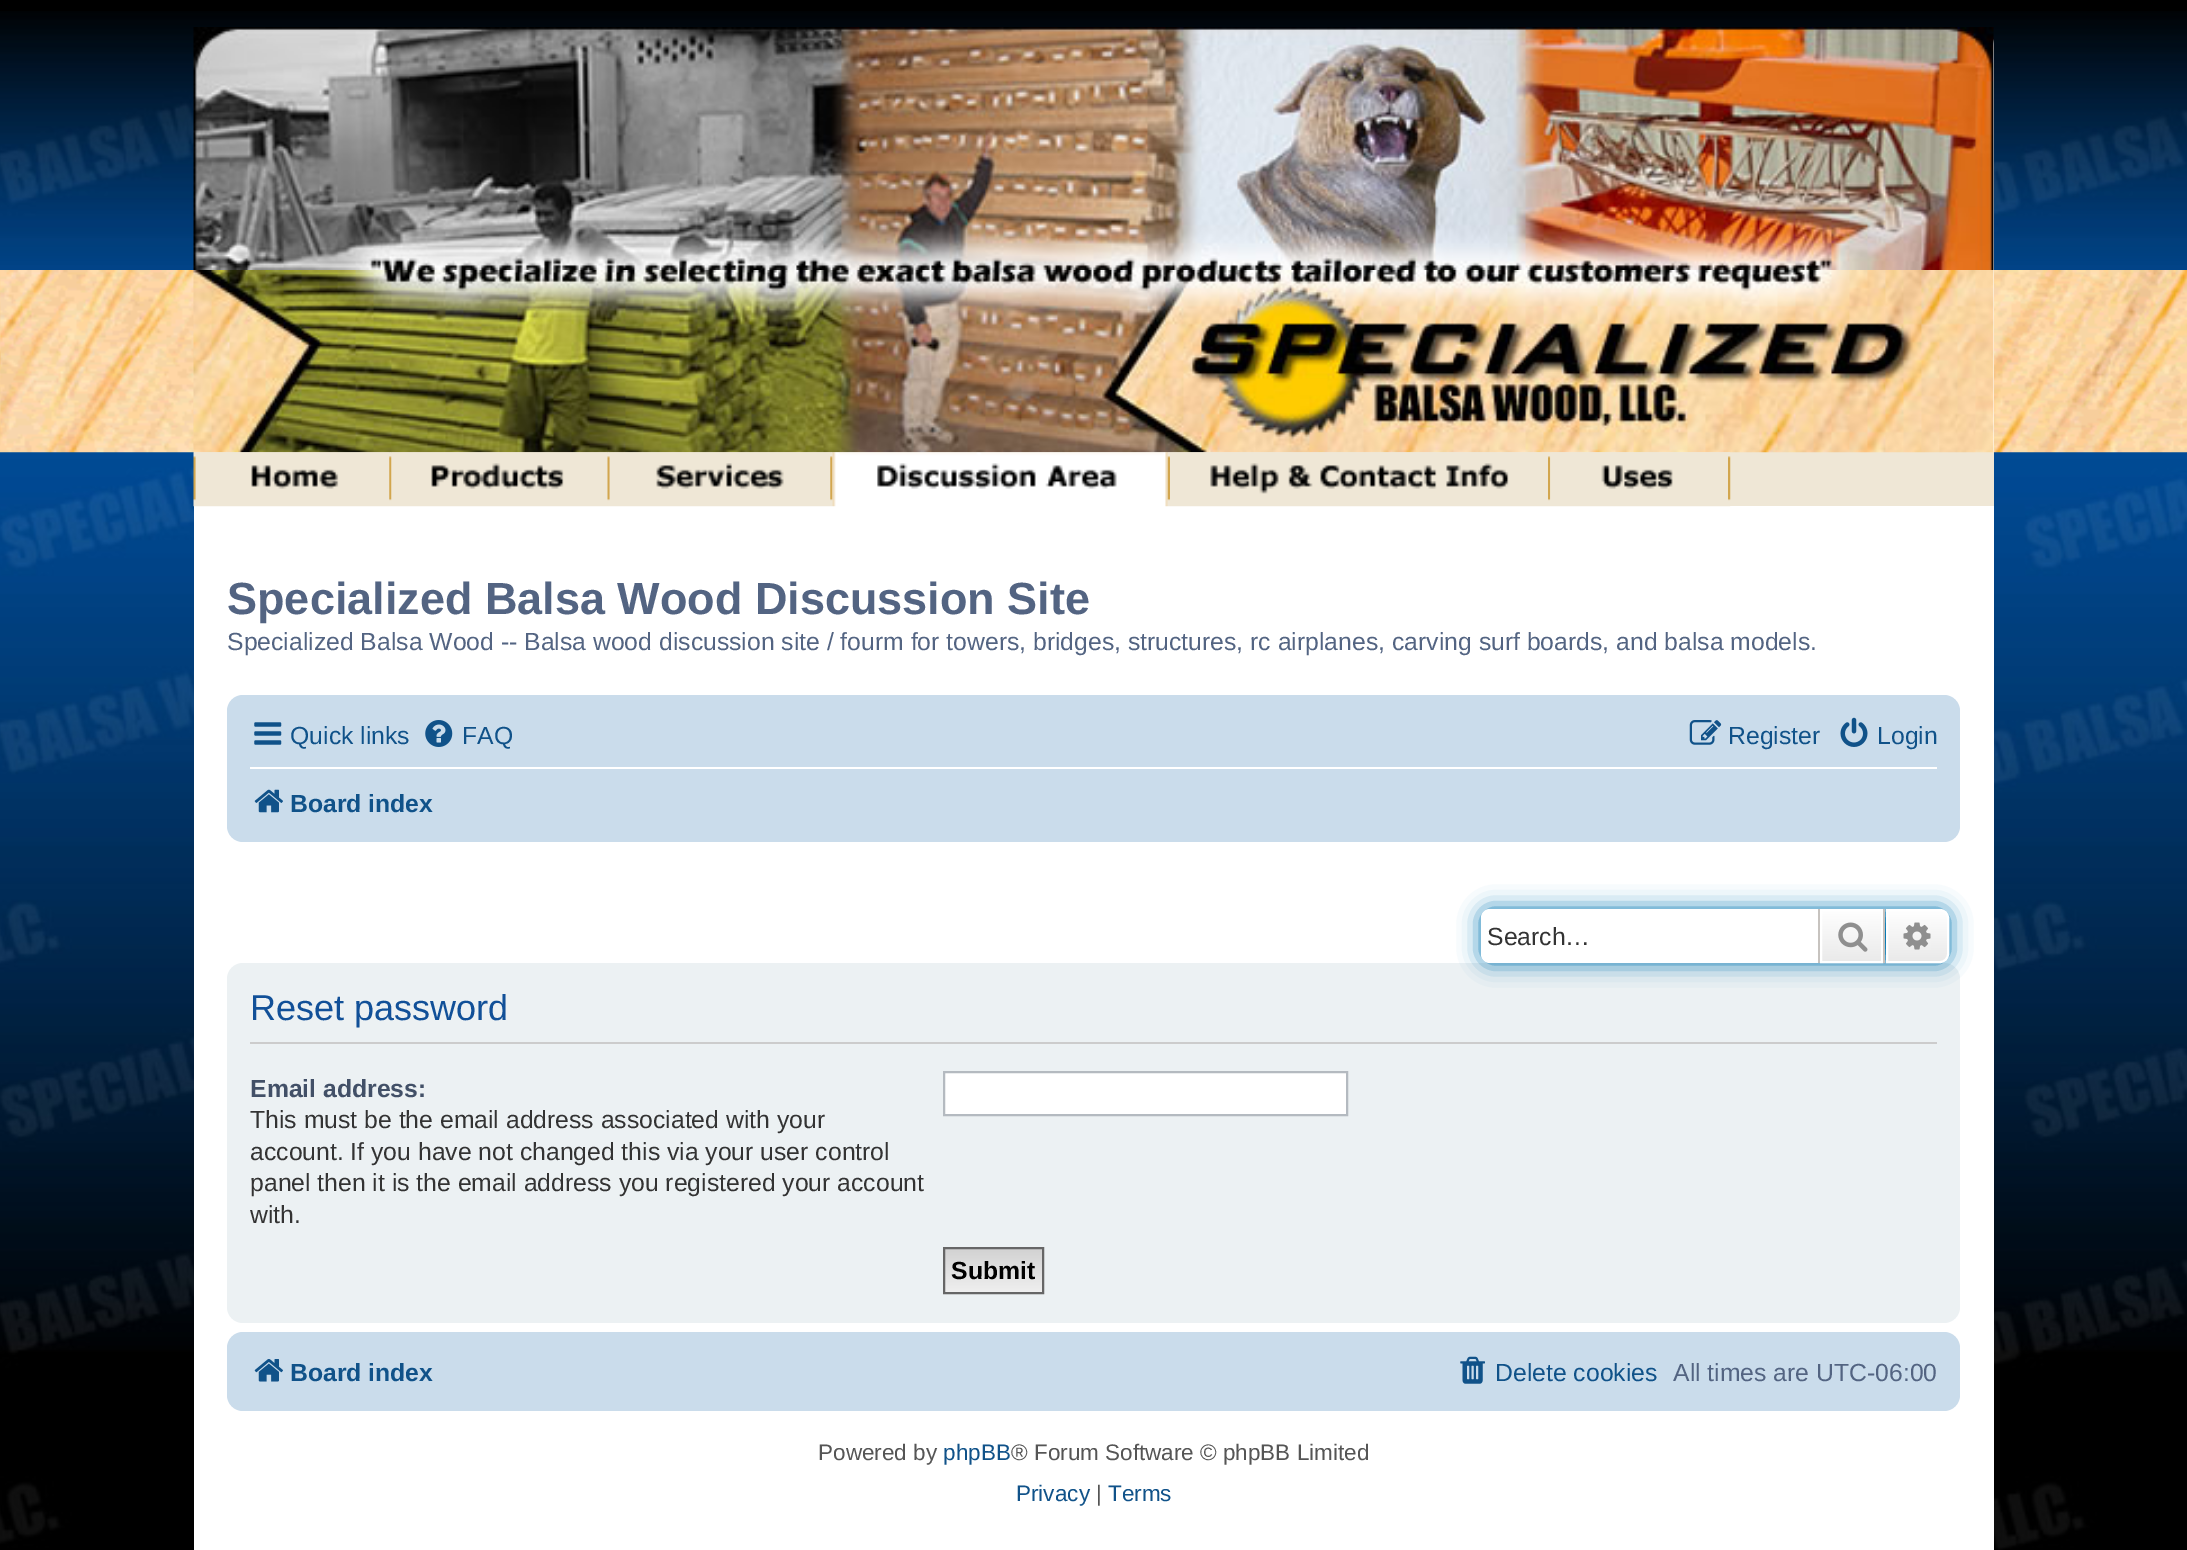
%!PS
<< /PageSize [2187 1550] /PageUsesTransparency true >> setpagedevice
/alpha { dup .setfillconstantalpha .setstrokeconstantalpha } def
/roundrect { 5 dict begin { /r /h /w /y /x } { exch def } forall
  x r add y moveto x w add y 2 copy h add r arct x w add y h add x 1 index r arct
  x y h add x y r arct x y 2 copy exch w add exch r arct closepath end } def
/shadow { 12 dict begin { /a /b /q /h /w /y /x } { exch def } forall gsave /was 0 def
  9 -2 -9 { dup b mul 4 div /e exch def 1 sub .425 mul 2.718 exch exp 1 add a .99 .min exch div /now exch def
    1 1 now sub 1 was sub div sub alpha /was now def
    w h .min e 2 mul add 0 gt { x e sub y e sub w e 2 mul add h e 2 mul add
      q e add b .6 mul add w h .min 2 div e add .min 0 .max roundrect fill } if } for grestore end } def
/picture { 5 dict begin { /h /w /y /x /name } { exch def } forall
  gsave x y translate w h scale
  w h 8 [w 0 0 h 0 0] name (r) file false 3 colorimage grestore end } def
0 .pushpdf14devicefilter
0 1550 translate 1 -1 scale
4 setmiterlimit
0 setgray
0 0 2187 1550 rectfill
(img1.rgb) 0 11 2187 1539 picture
(img2.rgb) 0 270 2187 183 picture
1 setgray
194 27 1800 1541 18 roundrect fill
(img3.rgb) 193 27 1801 243 picture
0.937 0.906 0.839 setrgbcolor
194 452 1800 54 rectfill
(img4.rgb) 193 270 1801 183 picture
(img5.rgb) 193 452 3 55 picture
(img6.rgb) 195 452 195 55 picture
(img7.rgb) 389 452 3 55 picture
(img8.rgb) 391 452 217 55 picture
(img9.rgb) 607 452 3 55 picture
(img10.rgb) 609 452 222 55 picture
(img11.rgb) 830 452 3 55 picture
(img12.rgb) 832 452 336 55 picture
(img13.rgb) 1167 452 3 55 picture
(img14.rgb) 1170 452 378 55 picture
(img15.rgb) 1548 452 3 55 picture
(img16.rgb) 1550 452 178 55 picture
(img17.rgb) 1728 452 3 55 picture
/LiberationSans-Bold [45 0 0 -45 0 0] selectfont
0.325 0.392 0.51 setrgbcolor
227 614 moveto (Specialized Balsa Wood Discussion Site) show
/LiberationSans-Regular [24.75 0 0 -24.75 0 0] selectfont
227 650 moveto (Specialized Balsa Wood -- Balsa wood discussion site / fourm for towers, bridges, structures, rc airplanes, carving surf boards, and balsa models.) show
0.792 0.863 0.922 setrgbcolor
227 695 1733 147 16 roundrect fill
(img18.rgb) 254 722 28 23 picture
0.063 0.322 0.537 setrgbcolor
290 744 moveto (Quick links) show
(img19.rgb) 425 720 28 27 picture
462 744 moveto (FAQ) show
(img20.rgb) 1689 720 33 25 picture
1728 744 moveto (Register) show
(img21.rgb) 1840 717 28 30 picture
1877 744 moveto (Login) show
1 setgray
250 767 1687 2 rectfill
(img22.rgb) 254 789 29 24 picture
/LiberationSans-Bold [24.75 0 0 -24.75 0 0] selectfont
0.063 0.322 0.537 setrgbcolor
290 812 moveto (Board index) show
0.925 0.945 0.953 setrgbcolor
227 963 1733 360 16 roundrect fill
0 0.459 0.69 setrgbcolor
1481 909 468 54 9 11 1 shadow
1 setgray
newpath 1490 909 moveto 1818 909 lineto 1818 963 lineto 1490 963 lineto 1485 963 1481 959 1481 954 curveto 1481 918 lineto 1481 913 1485 909 1490 909 curveto closepath fill
/LiberationSans-Regular [24.75 0 0 -24.75 0 0] selectfont
0.2 setgray
1487 945 moveto (Search…) show
gsave newpath 1822 911 moveto 1881 911 lineto 1881 961 lineto 1822 961 lineto closepath clip newpath
<< /ShadingType 2 /ColorSpace /DeviceRGB /Coords [1852 909 1852 963] /Extend [true true] /Function << /FunctionType 2 /Domain [0 1] /C0 [1 1 1] /C1 [0.914 0.914 0.914] /N 1 >> >> shfill grestore
1 setgray
2 setlinewidth
1821 910 61 52 rectstroke
0.78 0.765 0.749 setrgbcolor
1883 909 2 54 rectfill
1818 909 2 54 rectfill
(img23.rgb) 1838 922 30 30 picture
gsave newpath 1887 910 moveto 1940 910 lineto 1944.5 910 1948 913.5 1948 918 curveto 1948 954 lineto 1948 958.5 1944.5 962 1940 962 curveto 1887 962 lineto closepath clip newpath
<< /ShadingType 2 /ColorSpace /DeviceRGB /Coords [1917 909 1917 963] /Extend [true true] /Function << /FunctionType 2 /Domain [0 1] /C0 [1 1 1] /C1 [0.914 0.914 0.914] /N 1 >> >> shfill grestore
1 setgray
newpath 1887 910 moveto 1940 910 lineto 1944.5 910 1948 913.5 1948 918 curveto 1948 954 lineto 1948 958.5 1944.5 962 1940 962 curveto 1887 962 lineto closepath stroke
(img24.rgb) 1903 922 28 28 picture
0.8 setgray
250 1042 1687 2 rectfill
/LiberationSans-Regular [36 0 0 -36 0 0] selectfont
0.067 0.314 0.596 setrgbcolor
250 1020 moveto (Reset password) show
/LiberationSans-Bold [24.75 0 0 -24.75 0 0] selectfont
0.259 0.314 0.404 setrgbcolor
250 1097 moveto (Email address:) show
/LiberationSans-Regular [24.75 0 0 -24.75 0 0] selectfont
0.2 setgray
250 1128 moveto (This must be the email address associated with your) show
250 1160 moveto (account. If you have not changed this via your user control) show
250 1191 moveto (panel then it is the email address you registered your account) show
250 1223 moveto (with.) show
1 setgray
newpath 944 1072 moveto 1347 1072 lineto 1347 1115 lineto 944 1115 lineto closepath gsave fill grestore
0.706 0.729 0.753 setrgbcolor
stroke
gsave newpath 945 1249 moveto 1042 1249 lineto 1042 1292 lineto 945 1292 lineto closepath clip newpath
<< /ShadingType 2 /ColorSpace /DeviceRGB /Coords [993 1249 993 1292] /Extend [true true] /Function << /FunctionType 2 /Domain [0 1] /C0 [0.824 0.824 0.824] /C1 [0.937 0.937 0.937] /N 1 >> >> shfill grestore
0.4 setgray
944 1248 99 45 rectstroke
/LiberationSans-Bold [24.75 0 0 -24.75 0 0] selectfont
0 setgray
951 1279 moveto (Submit) show
0.792 0.863 0.922 setrgbcolor
227 1332 1733 79 16 roundrect fill
(img25.rgb) 254 1359 29 23 picture
0.063 0.322 0.537 setrgbcolor
290 1381 moveto (Board index) show
(img26.rgb) 1460 1356 25 28 picture
/LiberationSans-Regular [24.75 0 0 -24.75 0 0] selectfont
1495 1381 moveto (Delete cookies) show
0.325 0.392 0.51 setrgbcolor
1673 1381 moveto (All times are UTC-06:00) show
/LiberationSans-Regular [22.5 0 0 -22.5 0 0] selectfont
0.333 setgray
818 1460 moveto (Powered by) show
0.063 0.322 0.537 setrgbcolor
943 1460 moveto (phpBB) show
0.333 setgray
1011 1460 moveto (® Forum Software © phpBB Limited) show
0.063 0.322 0.537 setrgbcolor
1016 1501 moveto (Privacy) show
0.333 setgray
1096 1501 moveto (|) show
0.063 0.322 0.537 setrgbcolor
1108 1501 moveto (Terms) show
.poppdf14devicefilter showpage
